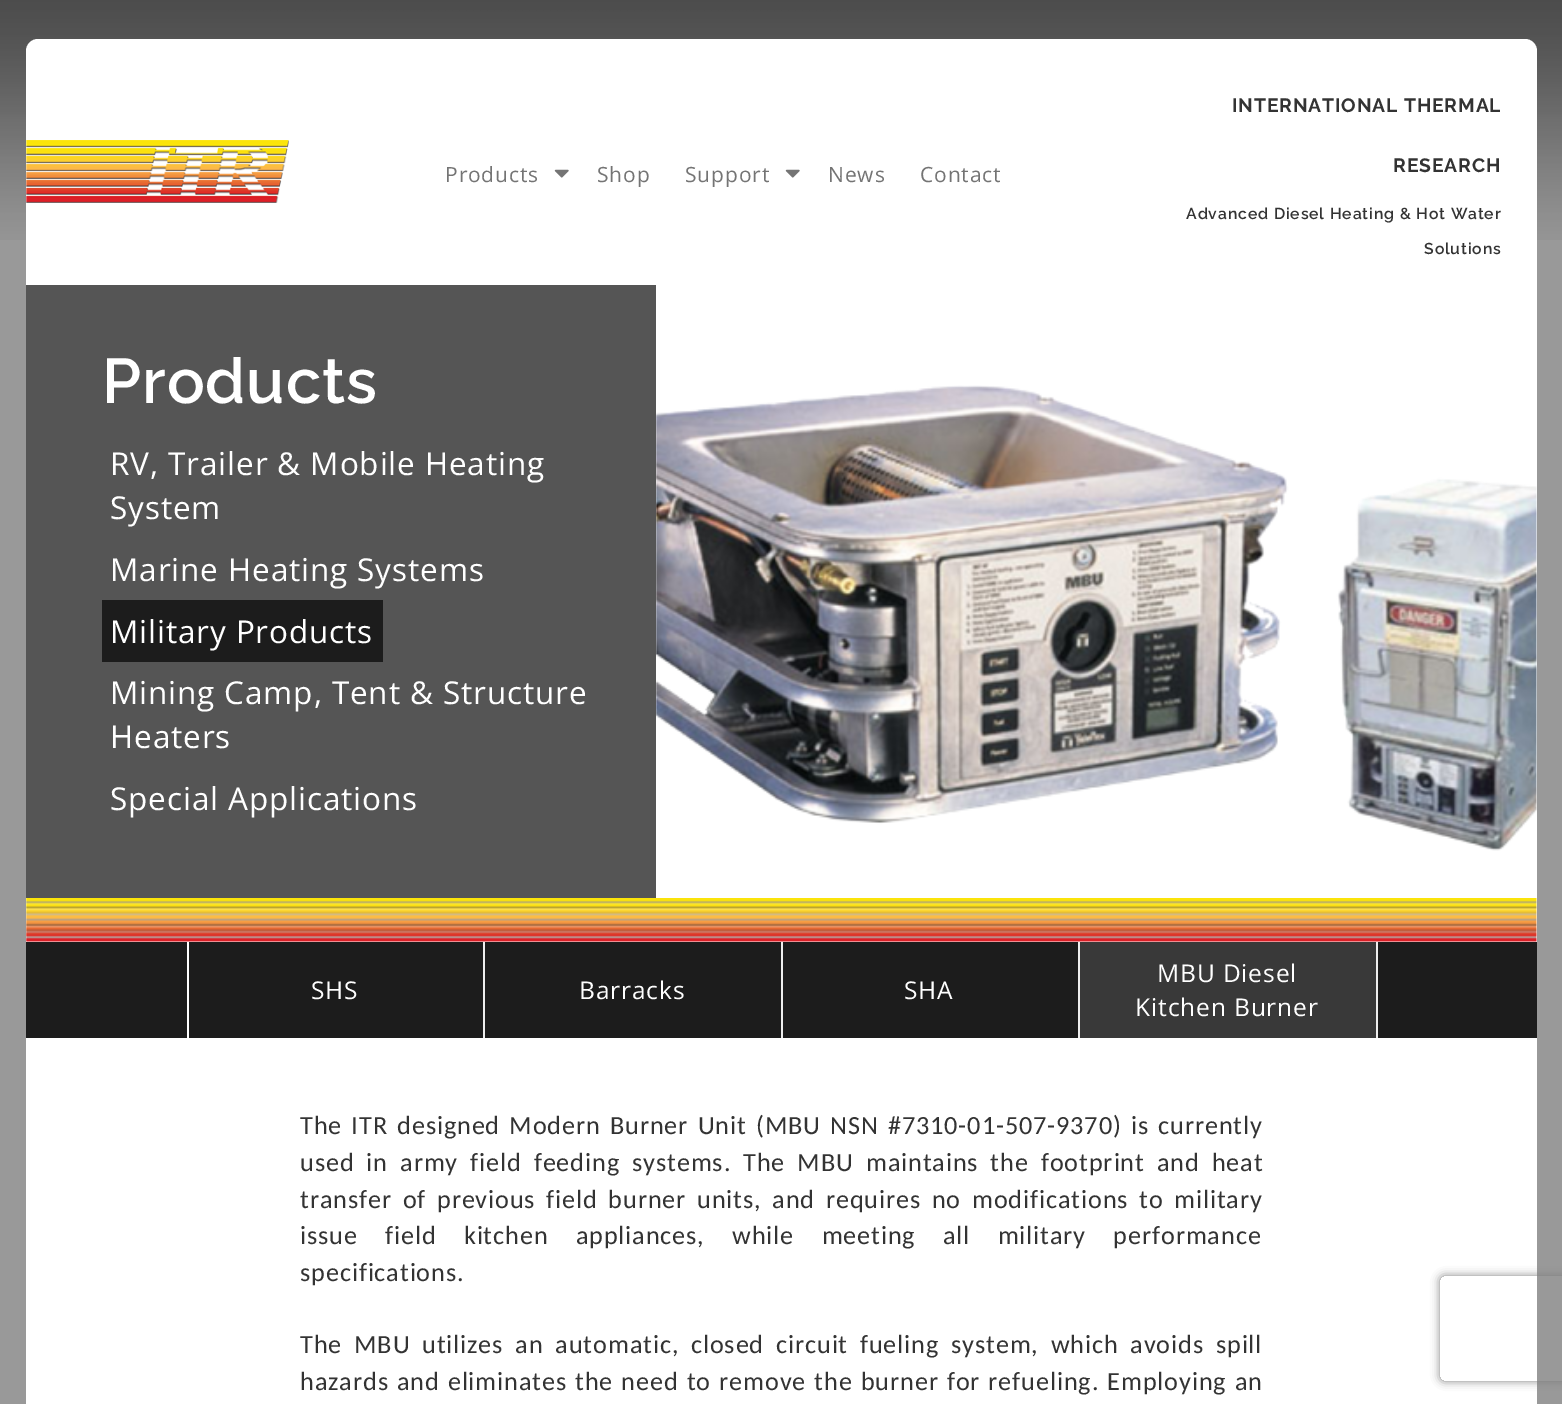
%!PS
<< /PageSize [1562 1404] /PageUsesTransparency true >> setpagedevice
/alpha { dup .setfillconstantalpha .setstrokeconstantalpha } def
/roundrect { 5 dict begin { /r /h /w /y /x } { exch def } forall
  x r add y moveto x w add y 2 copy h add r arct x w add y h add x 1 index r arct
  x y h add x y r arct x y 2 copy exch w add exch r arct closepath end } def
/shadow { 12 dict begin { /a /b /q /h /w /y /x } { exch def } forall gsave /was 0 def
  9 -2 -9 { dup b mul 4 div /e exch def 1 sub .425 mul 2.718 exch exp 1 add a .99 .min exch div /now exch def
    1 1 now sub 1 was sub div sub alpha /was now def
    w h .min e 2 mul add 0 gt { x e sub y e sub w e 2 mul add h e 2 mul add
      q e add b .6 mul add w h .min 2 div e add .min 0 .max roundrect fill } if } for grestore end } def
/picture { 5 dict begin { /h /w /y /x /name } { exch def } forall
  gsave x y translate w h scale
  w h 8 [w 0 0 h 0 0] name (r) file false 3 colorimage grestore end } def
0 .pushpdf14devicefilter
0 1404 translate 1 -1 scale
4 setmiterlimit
0.6 setgray
0 0 1562 1404 rectfill
(img1.rgb) 0 0 1562 240 picture
1 setgray
26 39 1511 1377 12 roundrect fill
(img2.rgb) 26 140 263 63 picture
/OpenSans-Regular [21 0 0 -21 0 0] selectfont
0.455 setgray
445 182 moveto 0.88 0 (Products) ashow
(img3.rgb) 554 169 15 9 picture
597 182 moveto 0.88 0 (Shop) ashow
685 182 moveto 0.88 0 (Support) ashow
(img3.rgb) 785 169 15 9 picture
828 182 moveto 0.88 0 (News) ashow
920 182 moveto 0.88 0 (Contact) ashow
/Raleway-Bold [19.25 0 0 -19.25 0 0] selectfont
0.2 setgray
1232 112 moveto 0.88 0 (INTERNATIONAL THERMAL) ashow
1393 172 moveto 0.88 0 (RESEARCH) ashow
/Raleway-SemiBold [15.75 0 0 -15.75 0 0] selectfont
1186 219 moveto 0.88 0 (Advanced Diesel Heating & Hot Water) ashow
1424 254 moveto 0.88 0 (Solutions) ashow
0.333 setgray
26 285 630 613 rectfill
/Raleway-SemiBold [63 0 0 -63 0 0] selectfont
1 setgray
102 403 moveto 0.88 0 (Products) ashow
/OpenSans-Regular [31.5 0 0 -31.5 0 0] selectfont
110 475 moveto 0.88 0 (RV, Trailer & Mobile Heating) ashow
110 519 moveto 0.88 0 (System) ashow
110 581 moveto 0.88 0 (Marine Heating Systems) ashow
0.11 setgray
102 600 281 62 rectfill
1 setgray
110 643 moveto 0.88 0 (Military Products) ashow
110 704 moveto 0.88 0 (Mining Camp, Tent & Structure) ashow
110 748 moveto 0.88 0 (Heaters) ashow
110 810 moveto 0.88 0 (Special Applications) ashow
(img4.rgb) 656 385 881 466 picture
(img5.rgb) 26 898 1511 44 picture
0.11 setgray
26 942 1511 96 rectfill
0.933 setgray
483 942 2 96 rectfill
1 setgray
187 942 2 96 rectfill
/OpenSans-Regular [24.5 0 0 -24.5 0 0] selectfont
311 999 moveto 0.88 0 (SHS) ashow
0.933 setgray
781 942 2 96 rectfill
1 setgray
579 999 moveto 0.88 0 (Barracks) ashow
0.933 setgray
1078 942 2 96 rectfill
1 setgray
904 999 moveto 0.88 0 (SHA) ashow
0.933 setgray
1376 942 2 96 rectfill
0.224 setgray
1080 942 296 96 rectfill
1 setgray
1157 982 moveto 0.88 0 (MBU Diesel) ashow
1135 1016 moveto 0.88 0 (Kitchen Burner) ashow
/Carlito-Regular [26.25 0 0 -26.25 0 0] selectfont
0.2 setgray
300 1134 moveto 2.4 0 32 0.88 0 (The ITR designed Modern Burner Unit \(MBU NSN #7310-01-507-9370\) is currently) awidthshow
300 1171 moveto 5.25 0 32 0.88 0 (used in army field feeding systems. The MBU maintains the footprint and heat) awidthshow
300 1208 moveto 3.9 0 32 0.88 0 (transfer of previous field burner units, and requires no modifications to military) awidthshow
300 1244 moveto 20.5 0 32 0.88 0 (issue field kitchen appliances, while meeting all military performance) awidthshow
300 1281 moveto 0.88 0 (specifications.) ashow
300 1353 moveto 5 0 32 0.88 0 (The MBU utilizes an automatic, closed circuit fueling system, which avoids spill) awidthshow
300 1390 moveto 1.25 0 32 0.88 0 (hazards and eliminates the need to remove the burner for refueling. Employing an) awidthshow
gsave
newpath 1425 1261 moveto 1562 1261 lineto 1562 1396 lineto 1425 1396 lineto closepath 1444 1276 moveto 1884 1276 lineto 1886 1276 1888 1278 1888 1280 curveto 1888 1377 lineto 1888 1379 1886 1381 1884 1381 curveto 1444 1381 lineto 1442 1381 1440 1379 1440 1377 curveto 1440 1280 lineto 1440 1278 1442 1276 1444 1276 curveto closepath eoclip newpath
0.502 setgray
1440 1276 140 105 4 4.5 1 shadow
grestore
.poppdf14devicefilter showpage
